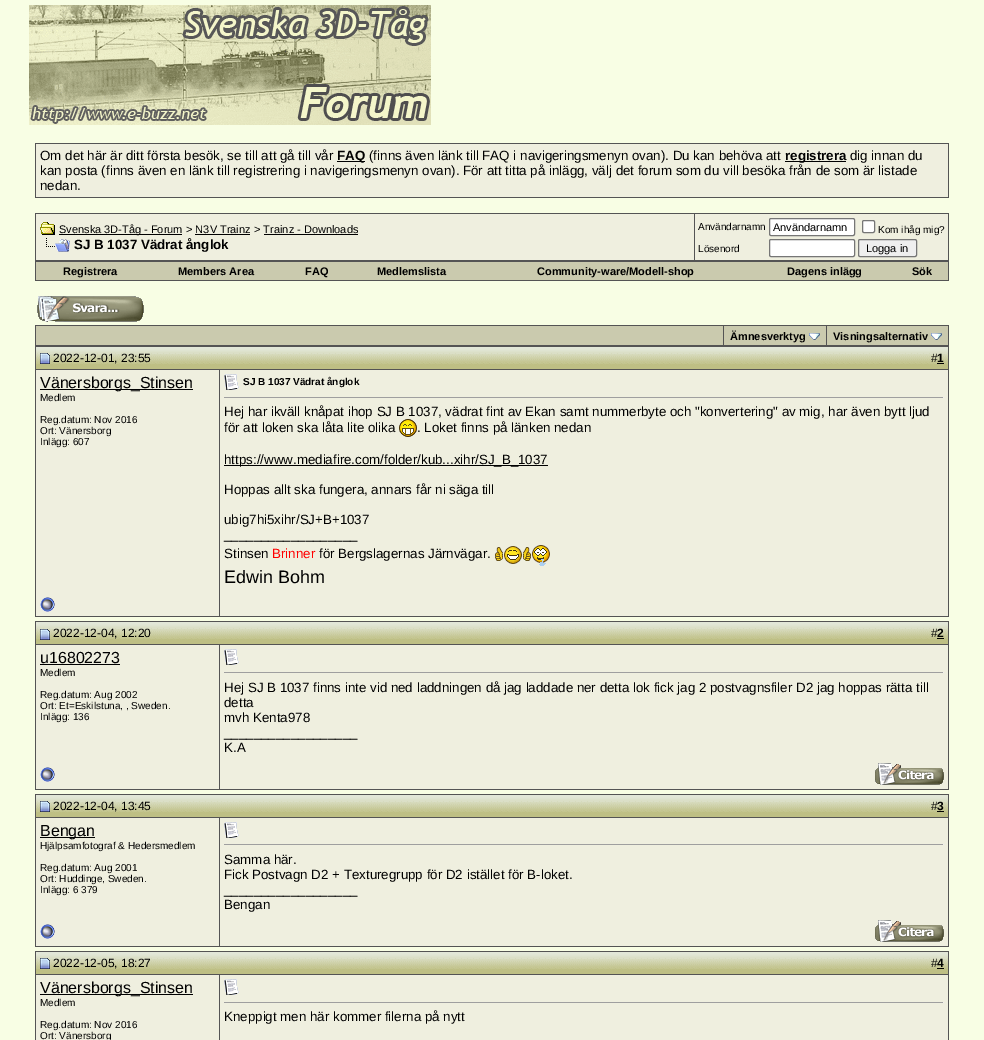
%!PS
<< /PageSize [984 1040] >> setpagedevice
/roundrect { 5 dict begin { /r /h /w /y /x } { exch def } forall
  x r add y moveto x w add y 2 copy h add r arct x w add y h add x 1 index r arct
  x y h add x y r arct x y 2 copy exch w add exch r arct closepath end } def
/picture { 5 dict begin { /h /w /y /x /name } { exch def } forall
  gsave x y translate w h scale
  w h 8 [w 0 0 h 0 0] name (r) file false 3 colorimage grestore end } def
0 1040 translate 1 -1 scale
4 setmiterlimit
0.973 0.996 0.894 setrgbcolor
0 0 984 1040 rectfill
(img1.rgb) 29 5 402 120 picture
0.329 setgray
35 143 914 55 rectfill
0.937 0.937 0.875 setrgbcolor
36 144 912 53 rectfill
/LiberationSans-Regular [13.33 0 0 -13.33 0 0] selectfont
0 setgray
40 160 moveto (Om det här är ditt första besök, se till att gå till vår) show
337 161 28 1 rectfill
/LiberationSans-Bold [13.33 0 0 -13.33 0 0] selectfont
337 160 moveto (FAQ) show
/LiberationSans-Regular [13.33 0 0 -13.33 0 0] selectfont
369 160 moveto (\(finns även länk till FAQ i navigeringsmenyn ovan\). Du kan behöva att) show
785 161 61 1 rectfill
/LiberationSans-Bold [13.33 0 0 -13.33 0 0] selectfont
785 160 moveto (registrera) show
/LiberationSans-Regular [13.33 0 0 -13.33 0 0] selectfont
850 160 moveto (dig innan du) show
40 175 moveto (kan posta \(finns även en länk till registrering i navigeringsmenyn ovan\). För att titta på inlägg, välj det forum som du vill besöka från de som är listade) show
40 190 moveto (nedan.) show
0.329 setgray
35 213 914 68 rectfill
0.937 0.937 0.875 setrgbcolor
36 214 658 46 rectfill
(img2.rgb) 40 222 15 13 picture
0 setgray
59 234 123 1 rectfill
/LiberationSans-Regular [11 0 0 -11 0 0] selectfont
59 233 moveto (Svenska 3D-Tåg - Forum) show
186 233 moveto (> N3V Trainz) show
195 234 55 1 rectfill
254 233 moveto (> Trainz - Downloads) show
264 234 94 1 rectfill
(img3.rgb) 46 238 24 14 picture
/LiberationSans-Bold [13.33 0 0 -13.33 0 0] selectfont
74 249 moveto (SJ B 1037 Vädrat ånglok) show
0.937 0.937 0.875 setrgbcolor
695 214 253 46 rectfill
/LiberationSans-Regular [10 0 0 -10 0 0] selectfont
0 setgray
698 230 moveto (Användarnamn) show
1 setgray
769.5 218.5 85 17 1.5 roundrect gsave fill grestore
0.463 setgray
stroke
/LiberationSans-Regular [11 0 0 -11 0 0] selectfont
0 setgray
773 231 moveto (Användarnamn) show
1 setgray
862.5 220.5 12 12 1.5 roundrect gsave fill grestore
0.463 setgray
stroke
/LiberationSans-Regular [10 0 0 -10 0 0] selectfont
0 setgray
878 233 moveto (Kom ihåg mig?) show
698 252 moveto (Lösenord) show
1 setgray
769.5 239.5 85 17 1.5 roundrect gsave fill grestore
0.463 setgray
stroke
0.937 setgray
858.5 239.5 58 17 1.5 roundrect gsave fill grestore
0.463 setgray
stroke
/LiberationSans-Regular [11 0 0 -11 0 0] selectfont
0 setgray
866 252 moveto (Logga in) show
0.792 0.792 0.682 setrgbcolor
36 262 912 18 rectfill
/LiberationSans-Bold [11 0 0 -11 0 0] selectfont
0 setgray
63 275 moveto (Registrera) show
178 275 moveto (Members Area) show
305 275 moveto (FAQ) show
377 275 moveto (Medlemslista) show
537 275 moveto (Community-ware/Modell-shop) show
787 275 moveto (Dagens inlägg) show
912 275 moveto (Sök) show
(img4.rgb) 37 296 107 26 picture
0.329 setgray
35 325 914 21 rectfill
0.792 0.792 0.682 setrgbcolor
36 326 687 19 rectfill
724 326 102 19 rectfill
0 setgray
730 340 moveto (Ämnesverktyg) show
(img5.rgb) 809 333 11 7 picture
0.792 0.792 0.682 setrgbcolor
827 326 121 19 rectfill
0 setgray
833 340 moveto (Visningsalternativ) show
(img5.rgb) 931 333 11 7 picture
0.329 setgray
948 370 1 247 rectfill
(img6.rgb) 36 347 184 22 picture
35 346 914 1 rectfill
35 369 185 1 rectfill
35 346 1 246 rectfill
(img7.rgb) 40 353 10 11 picture
/LiberationSans-Regular [12 0 0 -12 0 0] selectfont
0 setgray
53 362 moveto (2022-12-01, 23:55) show
(img8.rgb) 220 347 728 22 picture
0.329 setgray
948 346 1 24 rectfill
220 369 729 1 rectfill
0 setgray
931 362 moveto (#) show
/LiberationSans-Bold [12 0 0 -12 0 0] selectfont
937 362 moveto (1) show
937 363 7 1 rectfill
0.937 0.937 0.875 setrgbcolor
36 370 183 246 rectfill
0.329 setgray
219 370 1 247 rectfill
0 setgray
40 389 153 1 rectfill
/LiberationSans-Regular [16 0 0 -16 0 0] selectfont
40 388 moveto (Vänersborgs_Stinsen) show
/LiberationSans-Regular [10 0 0 -10 0 0] selectfont
40 401 moveto (Medlem) show
40 423 moveto (Reg.datum: Nov 2016) show
40 434 moveto (Ort: Vänersborg) show
40 445 moveto (Inlägg: 607) show
0.937 0.937 0.875 setrgbcolor
220 370 728 246 rectfill
(img9.rgb) 224 374 15 16 picture
/LiberationSans-Bold [10 0 0 -10 0 0] selectfont
0 setgray
243 385 moveto (SJ B 1037 Vädrat ånglok) show
0.624 setgray
224 397 720 1 rectfill
0.933 setgray
943 397 1 1 rectfill
/LiberationSans-Regular [13.33 0 0 -13.33 0 0] selectfont
0 setgray
224 416 moveto (Hej har ikväll knåpat ihop SJ B 1037, vädrat fint av Ekan samt nummerbyte och "konvertering" av mig, har även bytt ljud) show
224 432 moveto (för att loken ska låta lite olika) show
(img10.rgb) 399 419 18 18 picture
417 432 moveto (. Loket finns på länken nedan) show
224 465 324 1 rectfill
224 464 moveto (https://www.mediafire.com/folder/kub...xihr/SJ_B_1037) show
224 494 moveto (Hoppas allt ska fungera, annars får ni säga till) show
224 524 moveto (ubig7hi5xihr/SJ+B+1037) show
224 539 moveto (__________________) show
224 558 moveto (Stinsen) show
1 0 0 setrgbcolor
272 558 moveto (Brinner) show
0 setgray
319 558 moveto (för Bergslagernas Järnvägar.) show
(img11.rgb) 495 546 36 18 picture
(img12.rgb) 532 545 18 21 picture
/LiberationSans-Regular [18 0 0 -18 0 0] selectfont
224 583 moveto (Edwin Bohm) show
0.329 setgray
35 616 914 1 rectfill
35 592 1 25 rectfill
(img13.rgb) 40 597 15 15 picture
948 645 1 145 rectfill
(img6.rgb) 36 622 184 22 picture
35 621 914 1 rectfill
35 644 185 1 rectfill
35 621 1 138 rectfill
(img14.rgb) 40 629 10 11 picture
/LiberationSans-Regular [12 0 0 -12 0 0] selectfont
0 setgray
53 637 moveto (2022-12-04, 12:20) show
(img8.rgb) 220 622 728 22 picture
0.329 setgray
948 621 1 24 rectfill
220 644 729 1 rectfill
0 setgray
931 637 moveto (#) show
/LiberationSans-Bold [12 0 0 -12 0 0] selectfont
937 637 moveto (2) show
937 638 7 1 rectfill
0.937 0.937 0.875 setrgbcolor
36 645 183 144 rectfill
0.329 setgray
219 645 1 145 rectfill
/LiberationSans-Regular [16 0 0 -16 0 0] selectfont
0 setgray
40 663 moveto (u16802273) show
40 664 80 1 rectfill
/LiberationSans-Regular [10 0 0 -10 0 0] selectfont
40 676 moveto (Medlem) show
40 698 moveto (Reg.datum: Aug 2002) show
40 709 moveto (Ort: Et=Eskilstuna, , Sweden.) show
40 720 moveto (Inlägg: 136) show
0.937 0.937 0.875 setrgbcolor
220 645 728 144 rectfill
(img9.rgb) 224 649 15 16 picture
0.624 setgray
224 672 720 1 rectfill
0.933 setgray
943 672 1 1 rectfill
/LiberationSans-Regular [13.33 0 0 -13.33 0 0] selectfont
0 setgray
224 692 moveto (Hej SJ B 1037 finns inte vid ned laddningen då jag laddade ner detta lok fick jag 2 postvagnsfiler D2 jag hoppas rätta till) show
224 707 moveto (detta) show
224 722 moveto (mvh Kenta978) show
224 737 moveto (__________________) show
224 752 moveto (K.A) show
0.329 setgray
35 789 914 1 rectfill
35 759 1 31 rectfill
(img13.rgb) 40 767 15 15 picture
(img15.rgb) 875 763 69 22 picture
948 818 1 129 rectfill
(img6.rgb) 36 795 184 22 picture
35 794 914 1 rectfill
35 817 185 1 rectfill
35 794 1 122 rectfill
(img7.rgb) 40 801 10 11 picture
/LiberationSans-Regular [12 0 0 -12 0 0] selectfont
0 setgray
53 810 moveto (2022-12-04, 13:45) show
(img8.rgb) 220 795 728 22 picture
0.329 setgray
948 794 1 24 rectfill
220 817 729 1 rectfill
0 setgray
931 810 moveto (#) show
/LiberationSans-Bold [12 0 0 -12 0 0] selectfont
937 810 moveto (3) show
937 811 7 1 rectfill
0.937 0.937 0.875 setrgbcolor
36 818 183 128 rectfill
0.329 setgray
219 818 1 129 rectfill
0 setgray
40 837 55 1 rectfill
/LiberationSans-Regular [16 0 0 -16 0 0] selectfont
40 836 moveto (Bengan) show
/LiberationSans-Regular [10 0 0 -10 0 0] selectfont
40 849 moveto (Hjälpsamfotograf & Hedersmedlem) show
40 871 moveto (Reg.datum: Aug 2001) show
40 882 moveto (Ort: Huddinge, Sweden.) show
40 893 moveto (Inlägg: 6 379) show
0.937 0.937 0.875 setrgbcolor
220 818 728 128 rectfill
(img9.rgb) 224 822 15 16 picture
0.624 setgray
224 844 720 1 rectfill
0.933 setgray
943 844 1 1 rectfill
/LiberationSans-Regular [13.33 0 0 -13.33 0 0] selectfont
0 setgray
224 864 moveto (Samma här.) show
224 879 moveto (Fick Postvagn D2 + Texturegrupp för D2 istället för B-loket.) show
224 894 moveto (__________________) show
224 909 moveto (Bengan) show
0.329 setgray
35 946 914 1 rectfill
35 916 1 31 rectfill
(img13.rgb) 40 924 15 15 picture
(img15.rgb) 875 920 69 22 picture
948 975 1 65 rectfill
(img6.rgb) 36 952 184 22 picture
35 951 914 1 rectfill
35 974 185 1 rectfill
35 951 1 89 rectfill
(img7.rgb) 40 958 10 11 picture
/LiberationSans-Regular [12 0 0 -12 0 0] selectfont
0 setgray
53 967 moveto (2022-12-05, 18:27) show
(img8.rgb) 220 952 728 22 picture
0.329 setgray
948 951 1 24 rectfill
220 974 729 1 rectfill
0 setgray
931 967 moveto (#) show
/LiberationSans-Bold [12 0 0 -12 0 0] selectfont
937 967 moveto (4) show
937 968 7 1 rectfill
0.937 0.937 0.875 setrgbcolor
36 975 183 65 rectfill
0.329 setgray
219 975 1 65 rectfill
0 setgray
40 994 153 1 rectfill
/LiberationSans-Regular [16 0 0 -16 0 0] selectfont
40 993 moveto (Vänersborgs_Stinsen) show
/LiberationSans-Regular [10 0 0 -10 0 0] selectfont
40 1006 moveto (Medlem) show
40 1028 moveto (Reg.datum: Nov 2016) show
40 1039 moveto (Ort: Vänersborg) show
0.937 0.937 0.875 setrgbcolor
220 975 728 65 rectfill
(img9.rgb) 224 979 15 16 picture
0.624 setgray
224 1002 720 1 rectfill
0.933 setgray
943 1002 1 1 rectfill
/LiberationSans-Regular [13.33 0 0 -13.33 0 0] selectfont
0 setgray
224 1021 moveto (Kneppigt men här kommer filerna på nytt) show
showpage
